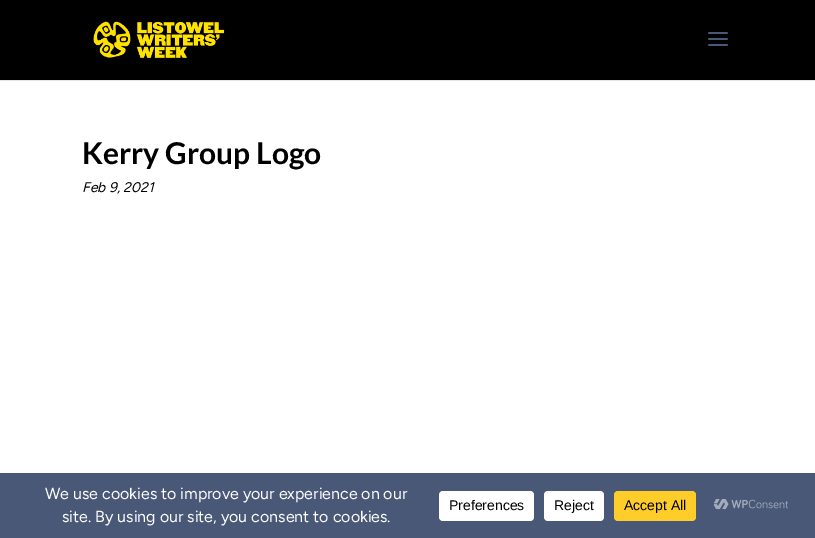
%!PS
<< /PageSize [815 538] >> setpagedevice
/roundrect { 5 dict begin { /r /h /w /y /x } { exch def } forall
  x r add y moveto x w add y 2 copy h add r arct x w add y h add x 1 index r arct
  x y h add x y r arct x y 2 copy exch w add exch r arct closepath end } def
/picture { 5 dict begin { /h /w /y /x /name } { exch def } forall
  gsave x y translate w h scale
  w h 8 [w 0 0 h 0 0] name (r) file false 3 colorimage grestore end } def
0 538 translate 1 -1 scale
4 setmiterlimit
1 setgray
0 0 815 538 rectfill
0.902 setgray
0 80 815 1 rectfill
0 setgray
0 0 815 80 rectfill
(img1.rgb) 93 21 132 37 picture
(img2.rgb) 708 32 20 14 picture
/Lato-Bold [30 0 0 -30 0 0] selectfont
82 164 moveto (Kerry Group Logo) show
/Figtree-Italic [14 0 0 -14 0 0] selectfont
82 192 moveto (Feb 9, 2021) show
0.286 0.345 0.467 setrgbcolor
0 473 815 65 rectfill
/Figtree-Regular [16 0 0 -16 0 0] selectfont
1 setgray
45 499 moveto (We use cookies to improve your experience on our) show
62 522 moveto (site. By using our site, you consent to cookies.) show
439 491 95 30 4 roundrect fill
/LiberationSans-Regular [14 0 0 -14 0 0] selectfont
0 setgray
449 510 moveto (Preferences) show
1 setgray
544 491 60 30 4 roundrect fill
0 setgray
554 510 moveto (Reject) show
1 0.804 0.165 setrgbcolor
614 491 82 30 4 roundrect fill
0 setgray
624 510 moveto (Accept All) show
(img3.rgb) 713 499 75 11 picture
showpage
